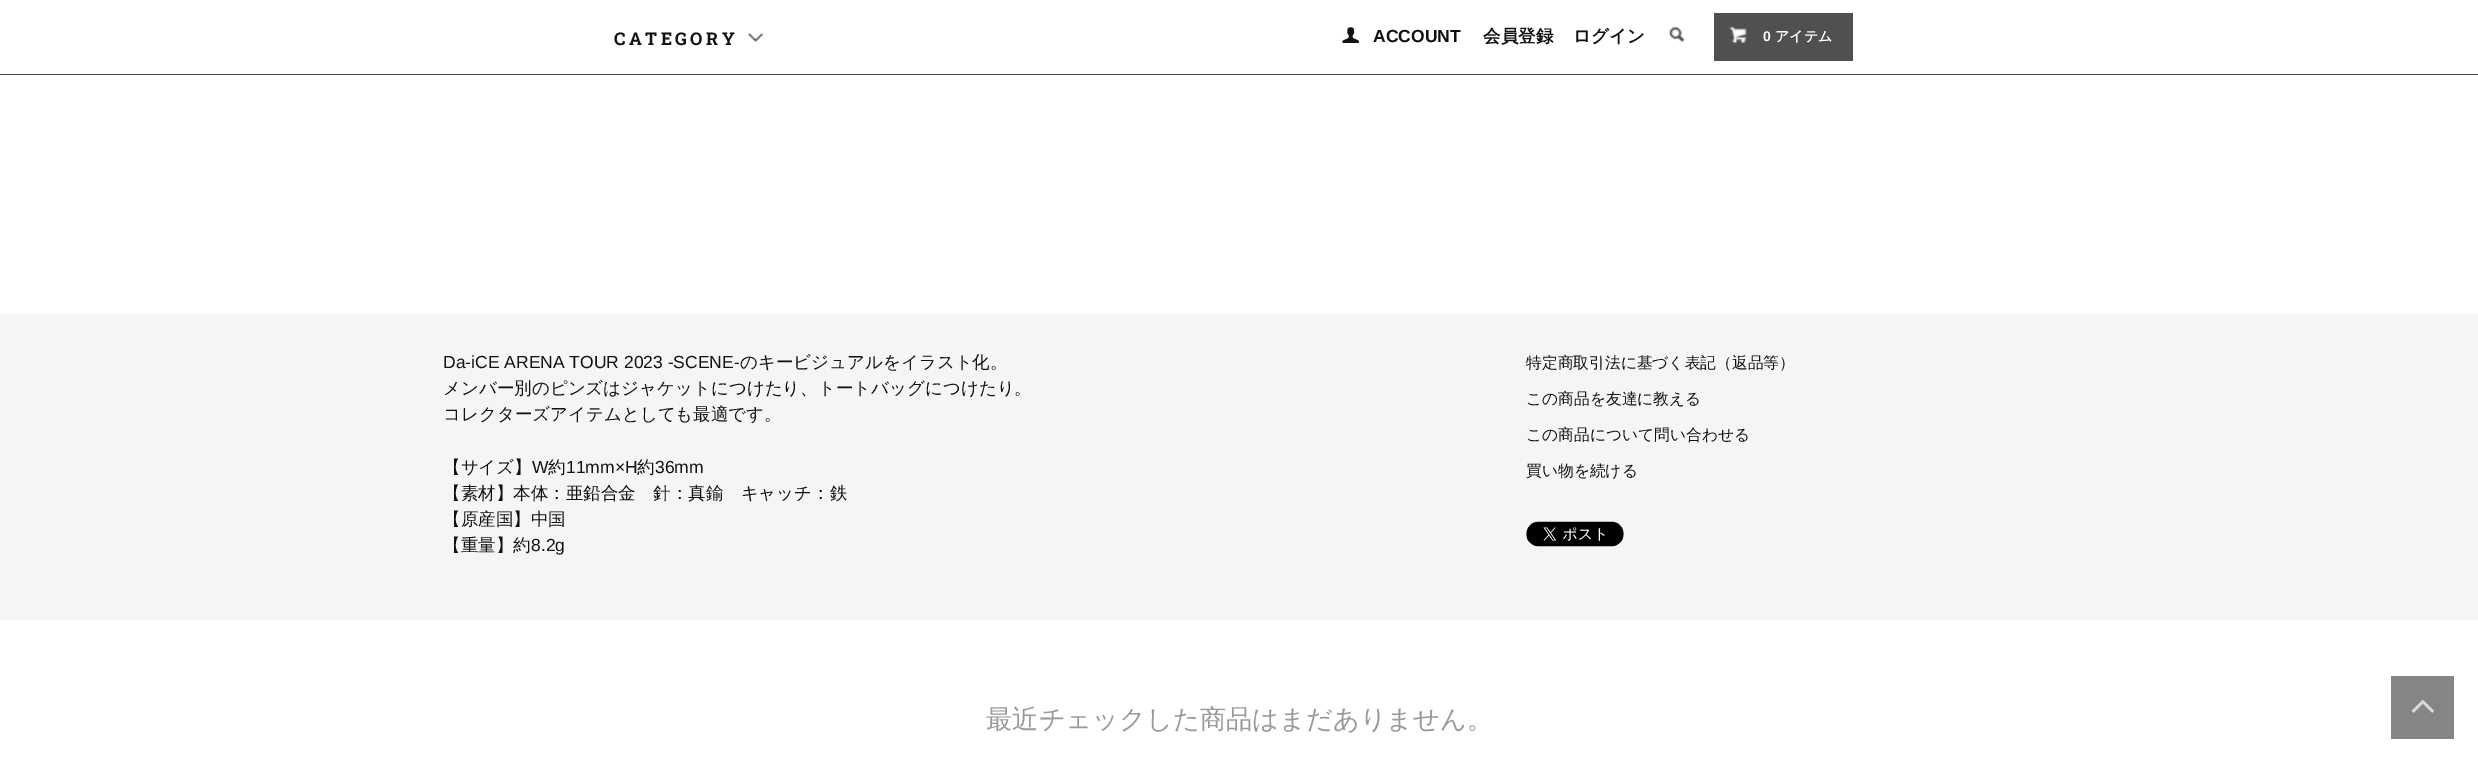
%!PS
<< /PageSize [2478 763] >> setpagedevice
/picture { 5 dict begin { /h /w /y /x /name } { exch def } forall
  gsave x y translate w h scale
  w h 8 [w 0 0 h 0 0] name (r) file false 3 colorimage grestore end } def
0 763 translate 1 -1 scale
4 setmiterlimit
1 setgray
0 0 2478 763 rectfill
0.267 setgray
0 74 2478 1 rectfill
/RobotoSlab-Bold [17.5 0 0 -17.5 0 0] selectfont
0.067 setgray
614 45 moveto 3.5 0 (CATEGORY) ashow
(img1.rgb) 747 32 17 10 picture
(img2.rgb) 1342 27 17 16 picture
/LiberationSans-Bold [17.5 0 0 -17.5 0 0] selectfont
1373 42 moveto (ACCOUNT) show
/WenQuanYiZenHei-Bold [17.5 0 0 -17.5 0 0] selectfont
1483 42 moveto (会員登録) show
1573 42 moveto (ログイン) show
(img3.rgb) 1669 26 16 16 picture
0.306 0.314 0.322 setrgbcolor
1714 13 139 48 rectfill
(img4.rgb) 1729 26 18 17 picture
/LiberationSans-Bold [14 0 0 -14 0 0] selectfont
1 setgray
1763 41 moveto (0) show
/WenQuanYiZenHei-Bold [14 0 0 -14 0 0] selectfont
1775 41 moveto (アイテム) show
0.961 setgray
0 314 2478 306 rectfill
/LiberationSans-Regular [17.5 0 0 -17.5 0 0] selectfont
0.067 setgray
443 368 moveto (Da-iCE ARENA TOUR 2023 -SCENE-) show
/WenQuanYiZenHei-Medium [17.5 0 0 -17.5 0 0] selectfont
740 368 moveto (のキービジュアルをイラスト化。) show
443 394 moveto (メンバー別のピンズはジャケットにつけたり、トートバッグにつけたり。) show
443 420 moveto (コレクターズアイテムとしても最適です。) show
443 473 moveto (【サイズ】) show
/LiberationSans-Regular [17.5 0 0 -17.5 0 0] selectfont
532 473 moveto (W) show
/WenQuanYiZenHei-Medium [17.5 0 0 -17.5 0 0] selectfont
548 473 moveto (約) show
/LiberationSans-Regular [17.5 0 0 -17.5 0 0] selectfont
566 473 moveto (11mm×H) show
/WenQuanYiZenHei-Medium [17.5 0 0 -17.5 0 0] selectfont
637 473 moveto (約) show
/LiberationSans-Regular [17.5 0 0 -17.5 0 0] selectfont
655 473 moveto (36mm) show
/WenQuanYiZenHei-Medium [17.5 0 0 -17.5 0 0] selectfont
443 499 moveto (【素材】本体：亜鉛合金　針：真鍮　キャッチ：鉄) show
443 525 moveto (【原産国】中国) show
443 551 moveto (【重量】約) show
/LiberationSans-Regular [17.5 0 0 -17.5 0 0] selectfont
531 551 moveto (8.2g) show
/WenQuanYiZenHei-Medium [15.75 0 0 -15.75 0 0] selectfont
1526 368 moveto (特定商取引法に基づく表記（返品等）) show
1526 404 moveto (この商品を友達に教える) show
1526 440 moveto (この商品について問い合わせる) show
1526 476 moveto (買い物を続ける) show
(img5.rgb) 1526 521 98 26 picture
/WenQuanYiZenHei-Medium [26.25 0 0 -26.25 0 0] selectfont
0.6 setgray
986 728 moveto (最近チェックした商品はまだありません。) show
0.514 0.522 0.525 setrgbcolor
2391 676 63 63 rectfill
(img6.rgb) 2411 699 23 14 picture
showpage
